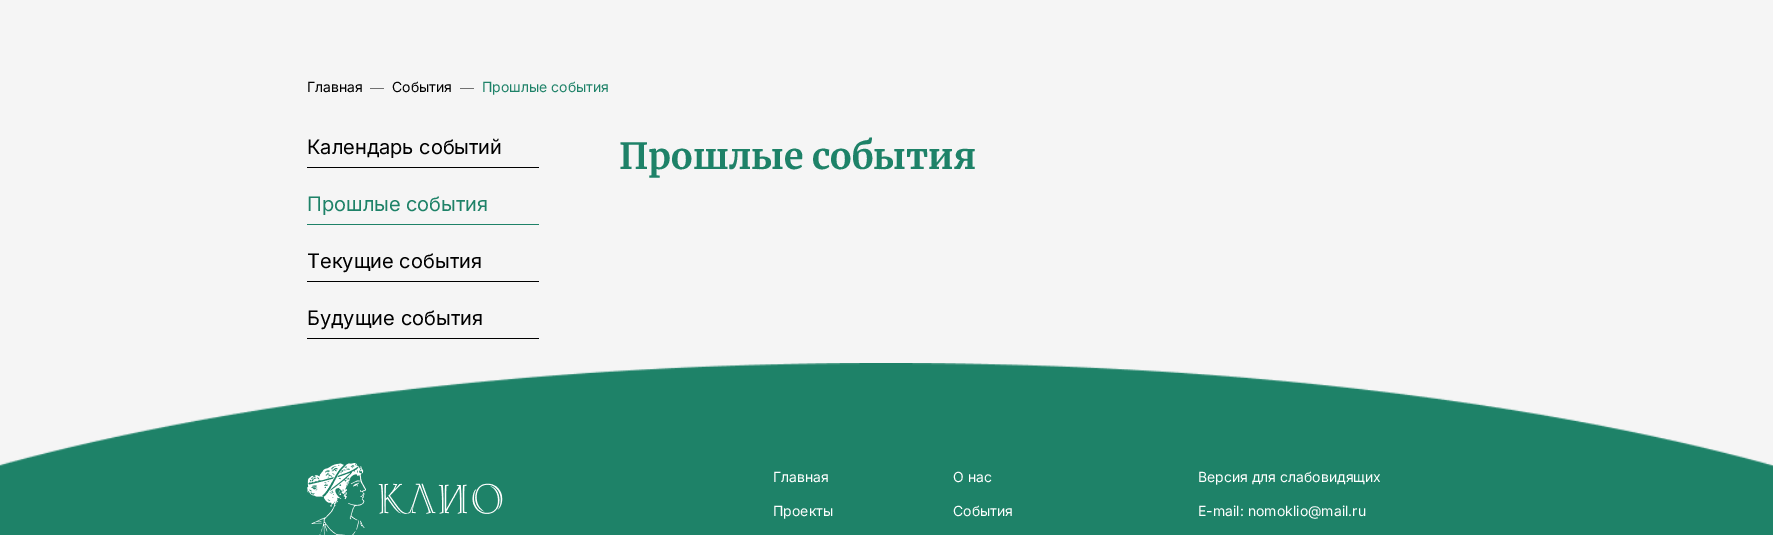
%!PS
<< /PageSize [1773 535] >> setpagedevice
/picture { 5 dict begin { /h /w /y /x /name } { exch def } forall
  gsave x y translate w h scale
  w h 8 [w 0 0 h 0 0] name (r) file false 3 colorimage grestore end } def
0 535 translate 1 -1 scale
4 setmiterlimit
0.961 setgray
0 0 1773 535 rectfill
/Inter-Regular [14 0 0 -14 0 0] selectfont
0 setgray
307 92 moveto (Главная) show
/LiberationSerif-Regular [14 0 0 -14 0 0] selectfont
370 92 moveto (―) show
/Inter-Regular [14 0 0 -14 0 0] selectfont
392 92 moveto (События) show
/LiberationSerif-Regular [14 0 0 -14 0 0] selectfont
460 92 moveto (―) show
/Inter-Regular [14 0 0 -14 0 0] selectfont
0.118 0.51 0.408 setrgbcolor
482 92 moveto (Прошлые события) show
0 setgray
307 167 232 1 rectfill
/Inter-Regular [20 0 0 -20 0 0] selectfont
307 154 moveto (Календарь событий) show
0.118 0.51 0.408 setrgbcolor
307 224 232 1 rectfill
307 211 moveto (Прошлые события) show
0 setgray
307 281 232 1 rectfill
307 268 moveto (Текущие события) show
307 338 232 1 rectfill
307 325 moveto (Будущие события) show
/Merriweather-Bold [36 0 0 -36 0 0] selectfont
0.118 0.51 0.408 setrgbcolor
619 169 moveto (Прошлые события) show
(img1.rgb) 0 363 1773 172 picture
(img2.rgb) 307 463 196 72 picture
/Inter-Regular [14 0 0 -14 0 0] selectfont
1 setgray
773 482 moveto (Главная) show
773 516 moveto (Проекты) show
953 482 moveto (О нас) show
953 516 moveto (События) show
1198 482 moveto (Версия для слабовидящих) show
1198 516 moveto (E-mail: nomoklio@mail.ru) show
showpage
